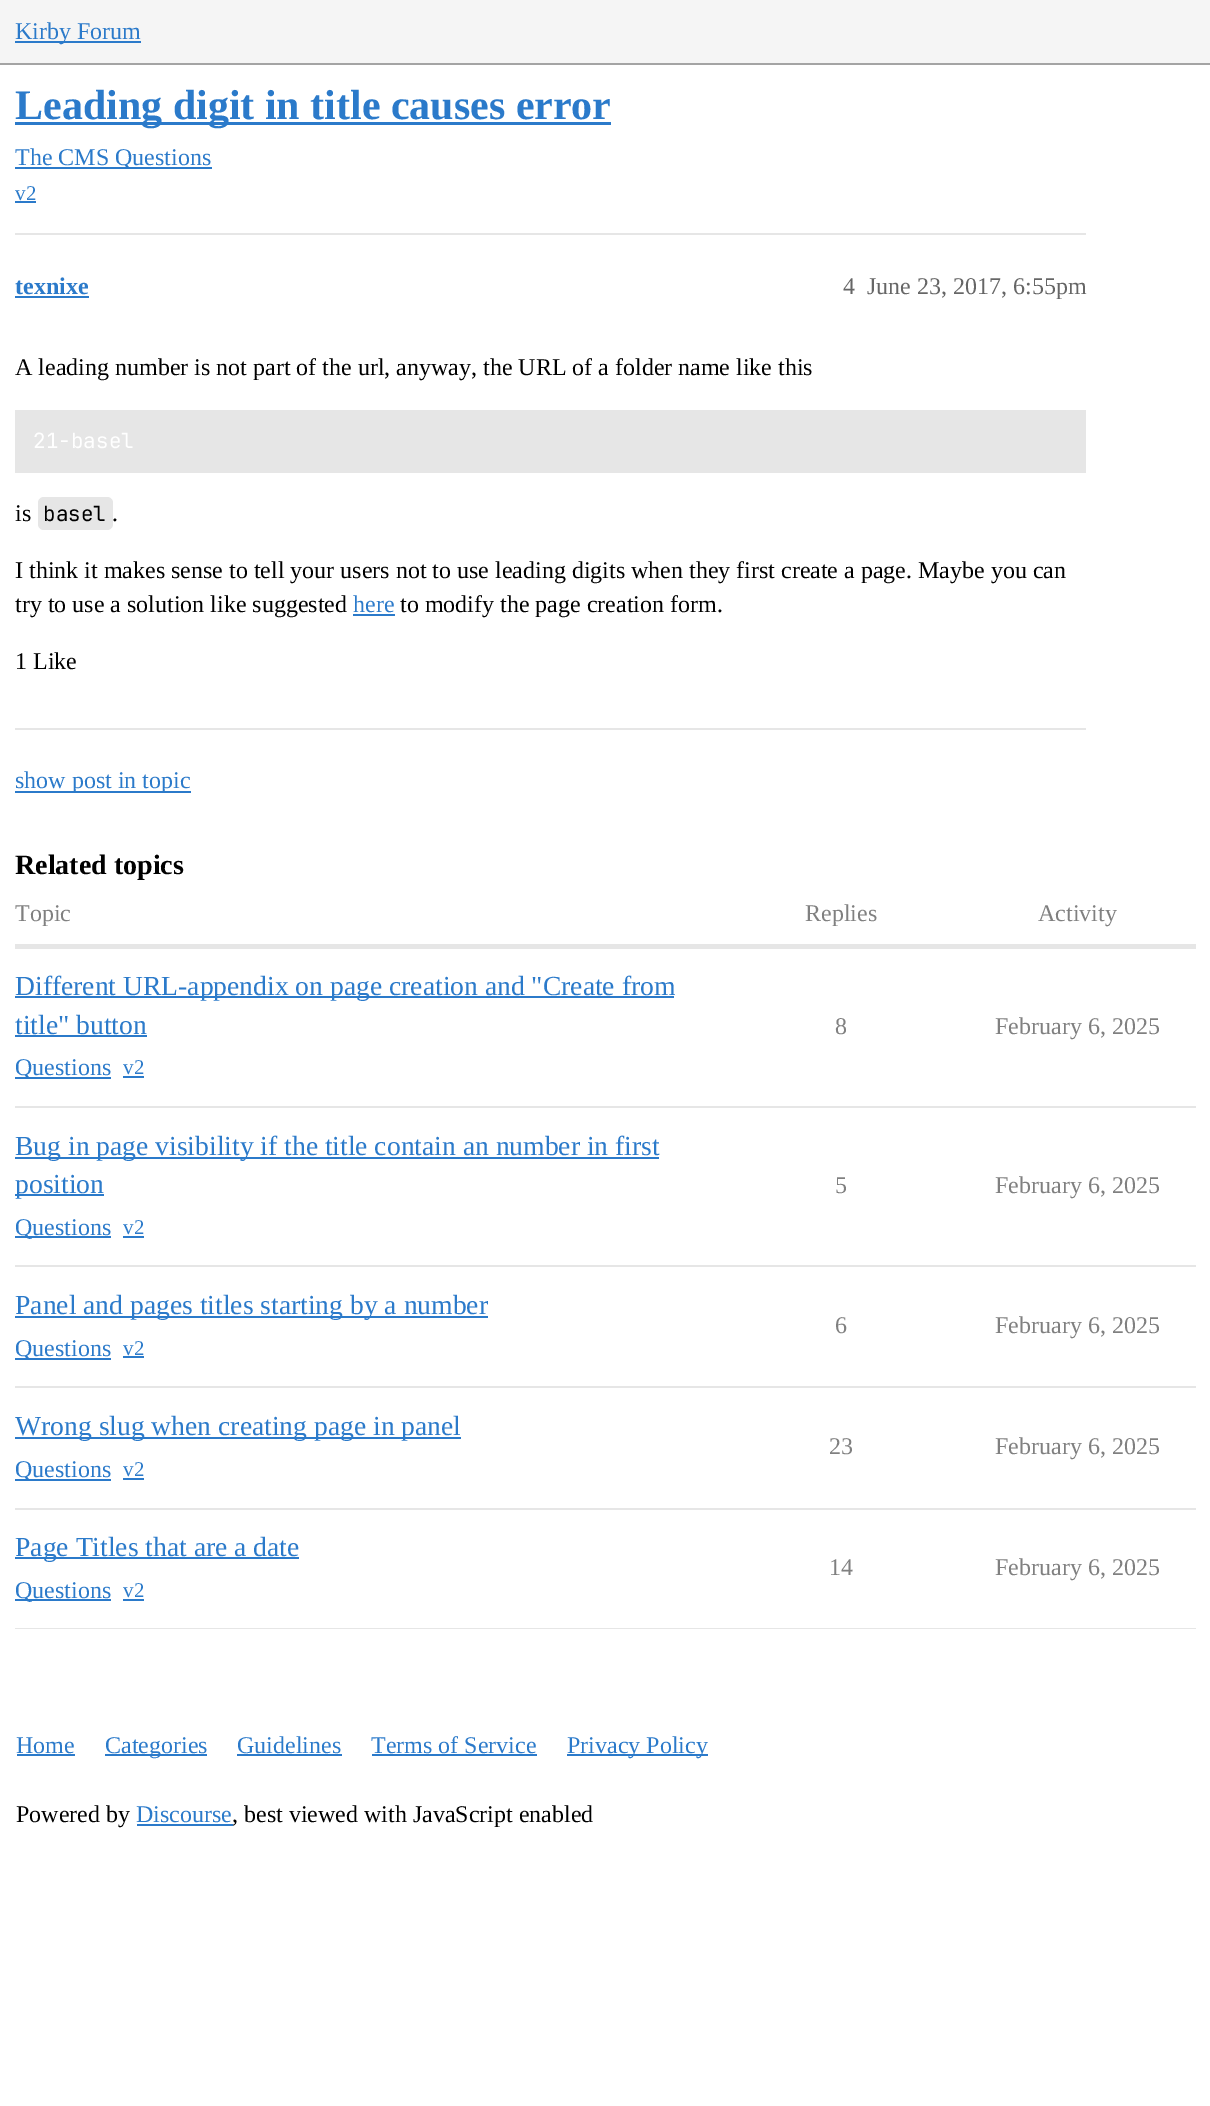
%!PS
<< /PageSize [1210 2106] >> setpagedevice
/roundrect { 5 dict begin { /r /h /w /y /x } { exch def } forall
  x r add y moveto x w add y 2 copy h add r arct x w add y h add x 1 index r arct
  x y h add x y r arct x y 2 copy exch w add exch r arct closepath end } def
0 2106 translate 1 -1 scale
4 setmiterlimit
1 setgray
0 0 1210 2106 rectfill
0.961 setgray
0 0 1210 63 rectfill
0.643 setgray
0 63 1210 2 rectfill
0.169 0.478 0.792 setrgbcolor
15 41 126 2 rectfill
/LiberationSerif-Regular [24 0 0 -24 0 0] selectfont
15 39 moveto (Kirby Forum) show
15 122 596 3 rectfill
/LiberationSerif-Bold [42 0 0 -42 0 0] selectfont
15 119 moveto (Leading digit in title causes error) show
15 167 197 2 rectfill
/LiberationSerif-Regular [24 0 0 -24 0 0] selectfont
15 165 moveto (The CMS Questions) show
/LiberationSerif-Regular [21 0 0 -21 0 0] selectfont
15 200 moveto (v2) show
15 201 21 2 rectfill
0.902 setgray
15 233 1071 2 rectfill
/LiberationSerif-Bold [24 0 0 -24 0 0] selectfont
0.169 0.478 0.792 setrgbcolor
15 294 moveto (texnixe) show
15 296 74 2 rectfill
/LiberationSerif-Regular [24 0 0 -24 0 0] selectfont
0.4 setgray
843 294 moveto (4) show
867 294 moveto (June 23, 2017, 6:55pm) show
0 setgray
15 375 moveto (A leading number is not part of the url, anyway, the URL of a folder name like this) show
0.902 setgray
15 410 1071 63 rectfill
/JetBrainsMono-Regular [21 0 0 -21 0 0] selectfont
1 setgray
33 448 moveto (21-basel) show
/LiberationSerif-Regular [24 0 0 -24 0 0] selectfont
0 setgray
15 521 moveto (is) show
0.902 setgray
38 497 75 33 6 roundrect fill
/JetBrainsMono-Regular [21 0 0 -21 0 0] selectfont
0 setgray
43 521 moveto (basel) show
/LiberationSerif-Regular [24 0 0 -24 0 0] selectfont
112 521 moveto (.) show
15 578 moveto (I think it makes sense to tell your users not to use leading digits when they first create a page. Maybe you can) show
15 612 moveto (try to use a solution like suggested) show
0.169 0.478 0.792 setrgbcolor
353 612 moveto (here) show
353 614 42 2 rectfill
0 setgray
400 612 moveto (to modify the page creation form.) show
15 669 moveto (1 Like) show
0.902 setgray
15 728 1071 2 rectfill
0.169 0.478 0.792 setrgbcolor
15 791 176 2 rectfill
15 788 moveto (show post in topic) show
/LiberationSerif-Bold [28 0 0 -28 0 0] selectfont
0 setgray
15 874 moveto (Related topics) show
/LiberationSerif-Regular [24 0 0 -24 0 0] selectfont
0.502 setgray
15 921 moveto (Topic) show
805 921 moveto (Replies) show
1038 921 moveto (Activity) show
0.902 setgray
15 944 1181 5 rectfill
15 1106 1181 2 rectfill
0.169 0.478 0.792 setrgbcolor
15 996 659 2 rectfill
/LiberationSerif-Regular [27.6 0 0 -27.6 0 0] selectfont
15 995 moveto (Different URL-appendix on page creation and "Create from) show
15 1034 moveto (title" button) show
15 1035 132 2 rectfill
15 1077 96 2 rectfill
/LiberationSerif-Regular [24 0 0 -24 0 0] selectfont
15 1075 moveto (Questions) show
/LiberationSerif-Regular [21 0 0 -21 0 0] selectfont
123 1074 moveto (v2) show
123 1076 21 2 rectfill
/LiberationSerif-Regular [24 0 0 -24 0 0] selectfont
0.502 setgray
835 1034 moveto (8) show
995 1034 moveto (February 6, 2025) show
0.902 setgray
15 1265 1181 2 rectfill
0.169 0.478 0.792 setrgbcolor
15 1157 644 2 rectfill
/LiberationSerif-Regular [27.6 0 0 -27.6 0 0] selectfont
15 1155 moveto (Bug in page visibility if the title contain an number in first) show
15 1194 89 2 rectfill
15 1193 moveto (position) show
15 1236 96 2 rectfill
/LiberationSerif-Regular [24 0 0 -24 0 0] selectfont
15 1235 moveto (Questions) show
/LiberationSerif-Regular [21 0 0 -21 0 0] selectfont
123 1234 moveto (v2) show
123 1236 21 2 rectfill
/LiberationSerif-Regular [24 0 0 -24 0 0] selectfont
0.502 setgray
835 1193 moveto (5) show
995 1193 moveto (February 6, 2025) show
0.902 setgray
15 1386 1181 2 rectfill
0.169 0.478 0.792 setrgbcolor
15 1316 473 2 rectfill
/LiberationSerif-Regular [27.6 0 0 -27.6 0 0] selectfont
15 1314 moveto (Panel and pages titles starting by a number) show
15 1358 96 2 rectfill
/LiberationSerif-Regular [24 0 0 -24 0 0] selectfont
15 1356 moveto (Questions) show
/LiberationSerif-Regular [21 0 0 -21 0 0] selectfont
123 1355 moveto (v2) show
123 1356 21 2 rectfill
/LiberationSerif-Regular [24 0 0 -24 0 0] selectfont
0.502 setgray
835 1333 moveto (6) show
995 1333 moveto (February 6, 2025) show
0.902 setgray
15 1508 1181 2 rectfill
0.169 0.478 0.792 setrgbcolor
15 1437 446 2 rectfill
/LiberationSerif-Regular [27.6 0 0 -27.6 0 0] selectfont
15 1435 moveto (Wrong slug when creating page in panel) show
15 1479 96 2 rectfill
/LiberationSerif-Regular [24 0 0 -24 0 0] selectfont
15 1477 moveto (Questions) show
/LiberationSerif-Regular [21 0 0 -21 0 0] selectfont
123 1476 moveto (v2) show
123 1478 21 2 rectfill
/LiberationSerif-Regular [24 0 0 -24 0 0] selectfont
0.502 setgray
829 1454 moveto (23) show
995 1454 moveto (February 6, 2025) show
0.902 setgray
15 1628 1181 1 rectfill
0.169 0.478 0.792 setrgbcolor
15 1557 284 2 rectfill
/LiberationSerif-Regular [27.6 0 0 -27.6 0 0] selectfont
15 1556 moveto (Page Titles that are a date) show
15 1599 96 2 rectfill
/LiberationSerif-Regular [24 0 0 -24 0 0] selectfont
15 1598 moveto (Questions) show
/LiberationSerif-Regular [21 0 0 -21 0 0] selectfont
123 1597 moveto (v2) show
123 1599 21 2 rectfill
/LiberationSerif-Regular [24 0 0 -24 0 0] selectfont
0.502 setgray
829 1575 moveto (14) show
995 1575 moveto (February 6, 2025) show
0.169 0.478 0.792 setrgbcolor
16 1753 moveto (Home) show
17 1754 58 2 rectfill
105 1754 102 2 rectfill
105 1753 moveto (Categories) show
237 1753 moveto (Guidelines) show
237 1754 105 2 rectfill
371 1753 moveto (Terms of Service) show
372 1754 165 2 rectfill
567 1754 141 2 rectfill
567 1753 moveto (Privacy Policy) show
0 setgray
16 1822 moveto (Powered by) show
0.169 0.478 0.792 setrgbcolor
136 1822 moveto (Discourse) show
137 1824 96 2 rectfill
0 setgray
232 1822 moveto (, best viewed with JavaScript enabled) show
showpage
